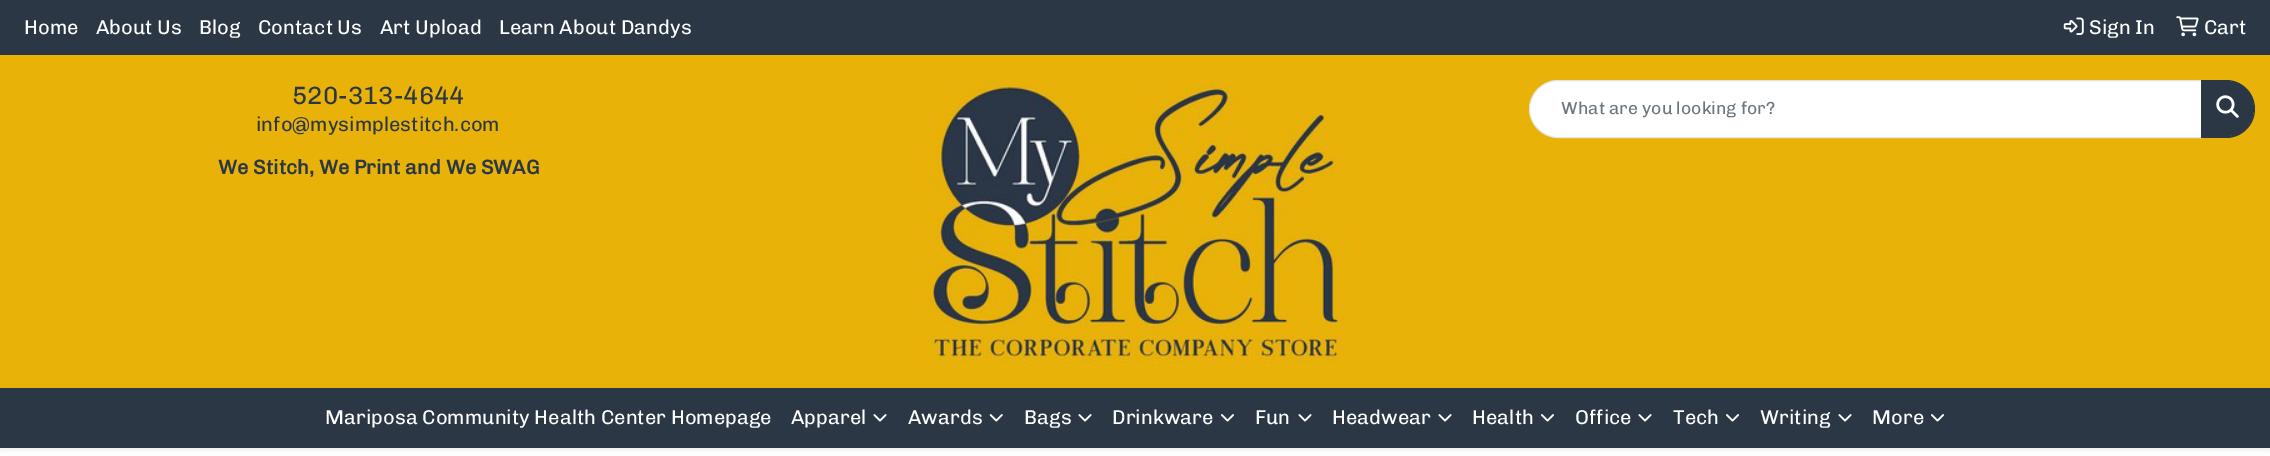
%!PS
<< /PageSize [2270 456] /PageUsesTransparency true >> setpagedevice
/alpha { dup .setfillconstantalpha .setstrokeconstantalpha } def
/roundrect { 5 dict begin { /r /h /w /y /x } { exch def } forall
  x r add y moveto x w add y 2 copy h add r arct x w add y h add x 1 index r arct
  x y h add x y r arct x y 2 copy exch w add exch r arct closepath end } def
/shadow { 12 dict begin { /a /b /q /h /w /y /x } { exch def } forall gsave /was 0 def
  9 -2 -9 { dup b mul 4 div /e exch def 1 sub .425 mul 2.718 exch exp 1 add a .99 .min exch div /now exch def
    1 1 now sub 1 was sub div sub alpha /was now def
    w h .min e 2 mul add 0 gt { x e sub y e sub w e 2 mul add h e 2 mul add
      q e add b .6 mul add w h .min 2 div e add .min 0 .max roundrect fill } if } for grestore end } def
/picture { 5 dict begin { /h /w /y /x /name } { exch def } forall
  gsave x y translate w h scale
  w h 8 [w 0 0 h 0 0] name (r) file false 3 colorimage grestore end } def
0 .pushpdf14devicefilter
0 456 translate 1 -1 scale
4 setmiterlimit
1 setgray
0 0 2270 456 rectfill
0.91 0.698 0.031 setrgbcolor
0 55 2270 333 rectfill
0.169 0.216 0.271 setrgbcolor
0 0 2270 55 rectfill
/Chivo-Medium [20 0 0 -20 0 0] selectfont
1 setgray
24 34 moveto (Home) show
96 34 moveto (About Us) show
199 34 moveto (Blog) show
258 34 moveto (Contact Us) show
380 34 moveto (Art Upload) show
499 34 moveto (Learn About Dandys) show
(img1.rgb) 2063 17 21 18 picture
2089 34 moveto (Sign In) show
(img2.rgb) 2176 16 23 21 picture
2204 34 moveto (Cart) show
/Chivo-Medium [25 0 0 -25 0 0] selectfont
0.169 0.216 0.271 setrgbcolor
292 104 moveto (520-313-4644) show
/Chivo-Medium [20 0 0 -20 0 0] selectfont
256 131 moveto (info@mysimplestitch.com) show
/Chivo-Bold [20 0 0 -20 0 0] selectfont
218 174 moveto (We Stitch, We Print and We SWAG) show
(img3.rgb) 926 80 421 283 picture
1 setgray
newpath 1558 80.5 moveto 2202.5 80.5 lineto 2202.5 137.5 lineto 1558 137.5 lineto 1542.5 137.5 1529.5 124.5 1529.5 109 curveto 1529.5 93.5 1542.5 80.5 1558 80.5 curveto closepath gsave fill grestore
0.894 setgray
stroke
/Chivo-Medium [17.5 0 0 -17.5 0 0] selectfont
0.424 0.459 0.49 setrgbcolor
1561 114 moveto (What are you looking for?) show
0.169 0.216 0.271 setrgbcolor
newpath 2201 81 moveto 2226.5 81 lineto 2241.5 81 2254 93.5 2254 108.5 curveto 2254 123.5 2241.5 136 2226.5 136 curveto 2201 136 lineto closepath fill
newpath 2201 80 moveto 2226 80 lineto 2242 80 2255 93 2255 109 curveto 2255 125 2242 138 2226 138 curveto 2201 138 lineto closepath 2201 81 moveto 2226 81 lineto 2241 81 2254 94 2254 109 curveto 2254 124 2241 136 2226 136 curveto 2201 136 lineto closepath eofill
(img4.rgb) 2216 95 23 23 picture
0 setgray
0 390 2270 60 0 2.5 0.07 shadow
0.169 0.216 0.271 setrgbcolor
0 388 2270 60 rectfill
/Chivo-Medium [20 0 0 -20 0 0] selectfont
1 setgray
325 424 moveto (Mariposa Community Health Center Homepage) show
791 424 moveto (Apparel) show
(img5.rgb) 873 414 14 8 picture
908 424 moveto (Awards) show
(img6.rgb) 989 414 14 8 picture
1024 424 moveto (Bags) show
(img5.rgb) 1078 414 14 8 picture
1112 424 moveto (Drinkware) show
(img7.rgb) 1221 414 13 8 picture
1255 424 moveto (Fun) show
(img5.rgb) 1298 414 14 8 picture
1332 424 moveto (Headwear) show
(img5.rgb) 1438 414 14 8 picture
1472 424 moveto (Health) show
(img7.rgb) 1541 414 13 8 picture
1575 424 moveto (Office) show
(img5.rgb) 1638 414 14 8 picture
1673 424 moveto (Tech) show
(img7.rgb) 1726 414 13 8 picture
1760 424 moveto (Writing) show
(img5.rgb) 1838 414 14 8 picture
1872 424 moveto (More) show
(img7.rgb) 1931 414 13 8 picture
.poppdf14devicefilter showpage
